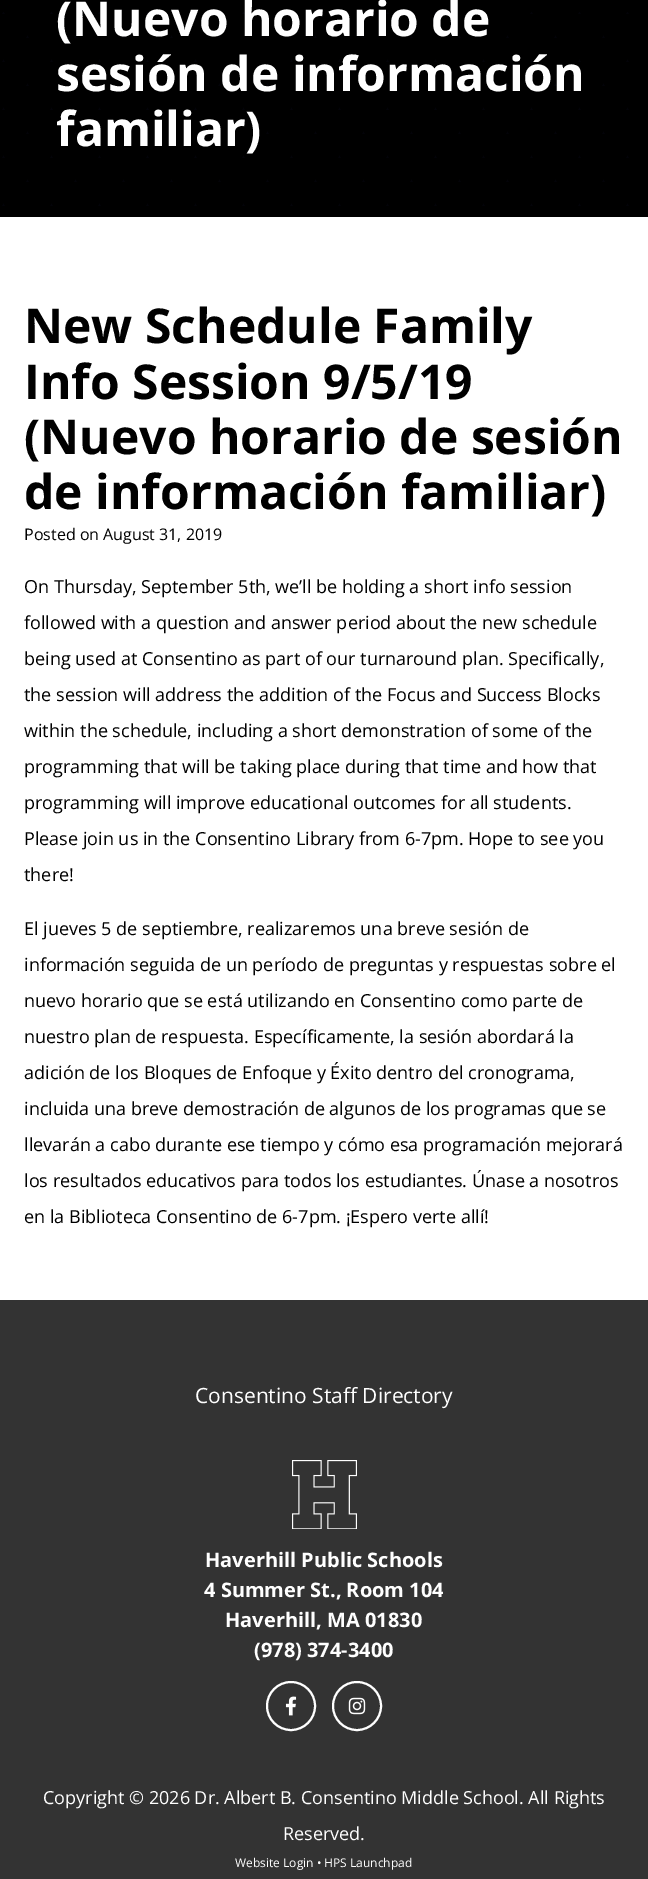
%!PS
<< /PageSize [648 1879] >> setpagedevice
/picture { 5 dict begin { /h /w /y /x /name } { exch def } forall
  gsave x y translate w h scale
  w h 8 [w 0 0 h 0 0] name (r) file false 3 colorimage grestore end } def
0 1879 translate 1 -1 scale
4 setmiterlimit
1 setgray
0 0 648 1879 rectfill
0 setgray
0 0 648 217 rectfill
(img1.rgb) 2 12 627 194 picture
/OpenSans-Bold [48 0 0 -48 0 0] selectfont
1 setgray
56 36 moveto (\(Nuevo horario de) show
56 91 moveto (sesión de información) show
56 146 moveto (familiar\)) show
0 setgray
24 343 moveto (New Schedule Family) show
24 399 moveto (Info Session 9/5/19) show
24 454 moveto (\(Nuevo horario de sesión) show
24 509 moveto (de información familiar\)) show
/OpenSans-Regular [16 0 0 -16 0 0] selectfont
24 540 moveto (Posted on August 31, 2019) show
/OpenSans-Regular [18 0 0 -18 0 0] selectfont
24 593 moveto (On Thursday, September 5th, we’ll be holding a short info session) show
24 629 moveto (followed with a question and answer period about the new schedule) show
24 665 moveto (being used at Consentino as part of our turnaround plan. Specifically,) show
24 701 moveto (the session will address the addition of the Focus and Success Blocks) show
24 737 moveto (within the schedule, including a short demonstration of some of the) show
24 773 moveto (programming that will be taking place during that time and how that) show
24 809 moveto (programming will improve educational outcomes for all students.) show
24 845 moveto (Please join us in the Consentino Library from 6-7pm. Hope to see you) show
24 881 moveto (there!) show
24 935 moveto (El jueves 5 de septiembre, realizaremos una breve sesión de) show
24 971 moveto (información seguida de un período de preguntas y respuestas sobre el) show
24 1007 moveto (nuevo horario que se está utilizando en Consentino como parte de) show
24 1043 moveto (nuestro plan de respuesta. Específicamente, la sesión abordará la) show
24 1079 moveto (adición de los Bloques de Enfoque y Éxito dentro del cronograma,) show
24 1115 moveto (incluida una breve demostración de algunos de los programas que se) show
24 1151 moveto (llevarán a cabo durante ese tiempo y cómo esa programación mejorará) show
24 1187 moveto (los resultados educativos para todos los estudiantes. Únase a nosotros) show
24 1223 moveto (en la Biblioteca Consentino de 6-7pm. ¡Espero verte allí!) show
0.2 setgray
0 1300 648 579 rectfill
/OpenSans-Regular [21 0 0 -21 0 0] selectfont
1 setgray
195 1403 moveto (Consentino Staff Directory) show
(img2.rgb) 292 1460 65 69 picture
/OpenSans-Bold [20 0 0 -20 0 0] selectfont
205 1567 moveto (Haverhill Public Schools) show
204 1597 moveto (4 Summer St., Room 104) show
225 1627 moveto (Haverhill, MA 01830) show
254 1657 moveto (\(978\) 374-3400) show
2 setlinewidth
newpath 291 1706 24 0 360 arc closepath stroke
(img3.rgb) 285 1696 12 20 picture
newpath 357 1706 24 0 360 arc closepath stroke
(img4.rgb) 348 1697 18 18 picture
/OpenSans-Regular [18 0 0 -18 0 0] selectfont
43 1804 moveto (Copyright © 2026 Dr. Albert B. Consentino Middle School. All Rights) show
283 1840 moveto (Reserved.) show
/OpenSans-Regular [12 0 0 -12 0 0] selectfont
235 1867 moveto (Website Login • HPS Launchpad) show
showpage
